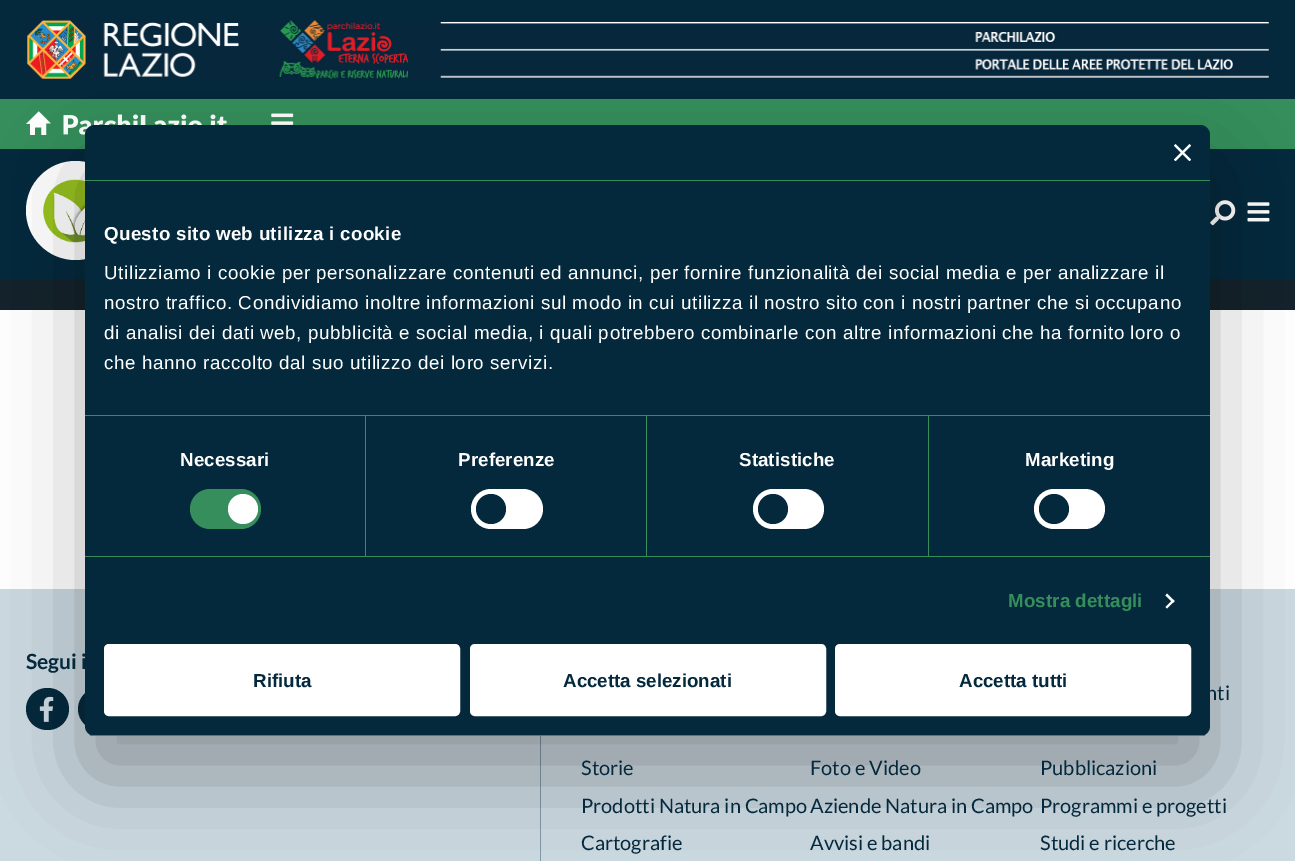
%!PS
<< /PageSize [1295 861] /PageUsesTransparency true >> setpagedevice
/alpha { dup .setfillconstantalpha .setstrokeconstantalpha } def
/roundrect { 5 dict begin { /r /h /w /y /x } { exch def } forall
  x r add y moveto x w add y 2 copy h add r arct x w add y h add x 1 index r arct
  x y h add x y r arct x y 2 copy exch w add exch r arct closepath end } def
/shadow { 12 dict begin { /a /b /q /h /w /y /x } { exch def } forall gsave /was 0 def
  9 -2 -9 { dup b mul 4 div /e exch def 1 sub .425 mul 2.718 exch exp 1 add a .99 .min exch div /now exch def
    1 1 now sub 1 was sub div sub alpha /was now def
    w h .min e 2 mul add 0 gt { x e sub y e sub w e 2 mul add h e 2 mul add
      q e add b .6 mul add w h .min 2 div e add .min 0 .max roundrect fill } if } for grestore end } def
/picture { 5 dict begin { /h /w /y /x /name } { exch def } forall
  gsave x y translate w h scale
  w h 8 [w 0 0 h 0 0] name (r) file false 3 colorimage grestore end } def
0 .pushpdf14devicefilter
0 861 translate 1 -1 scale
4 setmiterlimit
1 setgray
0 0 1295 861 rectfill
0.016 0.157 0.235 setrgbcolor
0 0 1295 99 rectfill
(img1.rgb) 27 20 1242 59 picture
0.208 0.557 0.361 setrgbcolor
0 99 1295 50 rectfill
(img2.rgb) 26 111 201 24 picture
(img3.rgb) 271 113 23 12 picture
0.016 0.157 0.235 setrgbcolor
0 149 1295 130 rectfill
1 setgray
newpath 75.5 210.5 49.5 0 360 arc closepath fill
(img4.rgb) 43 179 42 64 picture
(img5.rgb) 1210 200 26 26 picture
(img6.rgb) 1247 202 23 20 picture
0.075 0.133 0.169 setrgbcolor
0 279 1295 31 rectfill
0.796 0.851 0.878 setrgbcolor
0 589 1295 272 rectfill
0.51 0.596 0.643 setrgbcolor
540 736 1 125 rectfill
0.016 0.157 0.235 setrgbcolor
26 688 43 42 21 roundrect fill
(img8.rgb) 39 696 15 26 picture
newpath 99 709 21 0 360 arc closepath fill
0 setgray
85 165 1125 611 10 42.5 0.3 shadow
0.016 0.157 0.235 setrgbcolor
85 125 1125 611 10 roundrect fill
0.208 0.557 0.361 setrgbcolor
85 180 1125 1 rectfill
(img7.rgb) 1174 144 17 17 picture
85 415 1125 1 rectfill
/LiberationSans-Bold [18.75 0 0 -18.75 0 0] selectfont
1 setgray
104 240 moveto 0.3 0 (Questo sito web utilizza i cookie) ashow
/LiberationSans-Regular [18.75 0 0 -18.75 0 0] selectfont
104 279 moveto 0.62 0 (Utilizziamo i cookie per personalizzare contenuti ed annunci, per fornire funzionalità dei social media e per analizzare il) ashow
104 309 moveto 0.62 0 (nostro traffico. Condividiamo inoltre informazioni sul modo in cui utilizza il nostro sito con i nostri partner che si occupano) ashow
104 339 moveto 0.62 0 (di analisi dei dati web, pubblicità e social media, i quali potrebbero combinarle con altre informazioni che ha fornito loro o) ashow
104 369 moveto 0.62 0 (che hanno raccolto dal suo utilizzo dei loro servizi.) ashow
0.208 0.557 0.361 setrgbcolor
85 556 1125 1 rectfill
365 416 1 140 rectfill
/LiberationSans-Bold [18.75 0 0 -18.75 0 0] selectfont
1 setgray
180 466 moveto 0.1 0 (Necessari) ashow
0.208 0.557 0.361 setrgbcolor
190 489 71 40 20 roundrect fill
1 setgray
newpath 243 509 15 0 360 arc closepath fill
0.208 0.557 0.361 setrgbcolor
646 416 1 140 rectfill
1 setgray
458 466 moveto 0.1 0 (Preferenze) ashow
471 489 72 40 20 roundrect fill
0.016 0.157 0.235 setrgbcolor
newpath 491 509 15 0 360 arc closepath fill
0.208 0.557 0.361 setrgbcolor
928 416 1 140 rectfill
1 setgray
739 466 moveto 0.1 0 (Statistiche) ashow
753 489 71 40 20 roundrect fill
0.016 0.157 0.235 setrgbcolor
newpath 773 509 15 0 360 arc closepath fill
1 setgray
1025 466 moveto 0.1 0 (Marketing) ashow
1034 489 71 40 20 roundrect fill
0.016 0.157 0.235 setrgbcolor
newpath 1054 509 15 0 360 arc closepath fill
0.208 0.557 0.361 setrgbcolor
1008 607 moveto 0.1 0 (Mostra dettagli) ashow
1 setgray
newpath 1167 593.5 moveto 1174.5 601 lineto 1173 603 lineto 1165.5 595.5 lineto closepath fill
newpath 1173 599.5 moveto 1174.5 601 lineto 1167 608.5 lineto 1165.5 607 lineto closepath fill
gsave
85 125 1125 611 10 roundrect clip newpath
0.208 0.557 0.361 setrgbcolor
85 735 1125 1 rectfill
grestore
105.5 645.5 353 69 3.5 roundrect gsave fill grestore
3 setlinewidth
stroke
0.016 0.157 0.235 setrgbcolor
253 687 moveto (Rifiuta) show
1 setgray
471.5 645.5 353 69 3.5 roundrect gsave fill grestore
stroke
0.016 0.157 0.235 setrgbcolor
563 687 moveto (Accetta selezionati) show
1 setgray
836.5 645.5 353 69 3.5 roundrect gsave fill grestore
stroke
0.016 0.157 0.235 setrgbcolor
959 687 moveto (Accetta tutti) show
/Lato-Bold [21 0 0 -21 0 0] selectfont
26 669 moveto (Segui i) show
/Lato-Regular [20 0 0 -20 0 0] selectfont
1206 700 moveto (nti) show
581 775 moveto (Storie) show
810 775 moveto (Foto e Video) show
1040 775 moveto (Pubblicazioni) show
581 813 moveto (Prodotti Natura in Campo) show
810 813 moveto (Aziende Natura in Campo) show
1040 813 moveto (Programmi e progetti) show
581 850 moveto (Cartografie) show
810 850 moveto (Avvisi e bandi) show
1040 850 moveto (Studi e ricerche) show
.poppdf14devicefilter showpage
